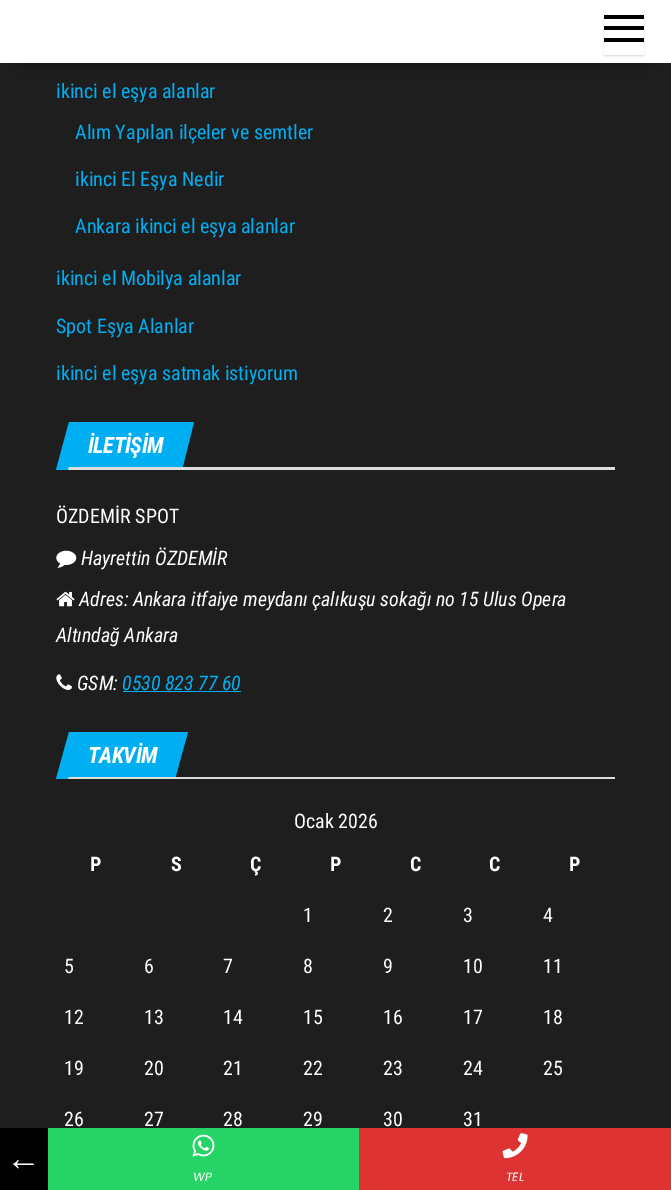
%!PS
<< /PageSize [671 1190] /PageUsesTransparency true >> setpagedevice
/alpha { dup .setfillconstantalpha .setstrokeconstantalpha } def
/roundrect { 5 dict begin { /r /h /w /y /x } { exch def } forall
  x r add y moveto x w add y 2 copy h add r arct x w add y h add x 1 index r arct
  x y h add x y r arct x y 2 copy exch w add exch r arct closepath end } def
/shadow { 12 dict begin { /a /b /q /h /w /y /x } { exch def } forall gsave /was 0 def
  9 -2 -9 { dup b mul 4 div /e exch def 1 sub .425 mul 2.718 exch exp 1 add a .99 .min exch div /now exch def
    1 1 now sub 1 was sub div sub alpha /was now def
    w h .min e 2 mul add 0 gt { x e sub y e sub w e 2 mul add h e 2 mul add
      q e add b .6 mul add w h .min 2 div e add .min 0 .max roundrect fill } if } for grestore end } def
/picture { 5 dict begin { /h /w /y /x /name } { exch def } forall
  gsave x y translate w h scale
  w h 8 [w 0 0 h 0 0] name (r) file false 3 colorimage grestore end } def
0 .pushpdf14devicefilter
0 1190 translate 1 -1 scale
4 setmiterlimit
0.118 setgray
0 0 671 1190 rectfill
0 setgray
15 28 641 32 0 12.5 0.42 shadow
1 setgray
0 0 671 63 rectfill
gsave
newpath 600 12 moveto 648 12 lineto 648 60 lineto 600 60 lineto closepath 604 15 moveto 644 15 lineto 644 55 lineto 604 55 lineto closepath eoclip newpath
0 setgray
604 16 40 40 0 1 0.15 shadow
grestore
0 setgray
604 15 40 4 rectfill
604 26 40 4 rectfill
604 38 40 4 rectfill
/RobotoCondensed-Regular [20 0 0 -20 0 0] selectfont
0 0.686 0.949 setrgbcolor
56 98 moveto (ikinci el eşya alanlar) show
75 139 moveto (Alım Yapılan ilçeler ve semtler) show
75 186 moveto (ikinci El Eşya Nedir) show
75 233 moveto (Ankara ikinci el eşya alanlar) show
56 285 moveto (ikinci el Mobilya alanlar) show
56 333 moveto (Spot Eşya Alanlar) show
56 380 moveto (ikinci el eşya satmak istiyorum) show
newpath 69 422 moveto 194 422 lineto 182 470 lineto 56 470 lineto closepath fill
/RobotoCondensed-BoldItalic [22.5 0 0 -22.5 0 0] selectfont
1 setgray
88 453 moveto -0.5 0 (İLETİŞİM) ashow
0.867 setgray
newpath 69 467 moveto 615 467 lineto 615 470 lineto 68 470 lineto closepath fill
/RobotoCondensed-Regular [20 0 0 -20 0 0] selectfont
1 setgray
56 523 moveto (ÖZDEMİR SPOT) show
/RobotoCondensed-Italic [20 0 0 -20 0 0] selectfont
81 565 moveto (Hayrettin ÖZDEMİR) show
(img1.rgb) 56 591 19 16 picture
79 606 moveto (Adres: Ankara itfaiye meydanı çalıkuşu sokağı no 15 Ulus Opera) show
56 642 moveto (Altındağ Ankara) show
(img2.rgb) 56 674 16 16 picture
77 690 moveto (GSM:) show
0 0.686 0.949 setrgbcolor
122 690 moveto (0530 823 77 60) show
123 691 118 1 rectfill
(img3.rgb) 56 550 21 18 picture
newpath 69 732 moveto 188 732 lineto 175 779 lineto 56 779 lineto closepath fill
/RobotoCondensed-BoldItalic [22.5 0 0 -22.5 0 0] selectfont
1 setgray
88 763 moveto -0.5 0 (TAKVİM) ashow
0.867 setgray
newpath 69 777 moveto 615 777 lineto 615 779 lineto 68 779 lineto closepath fill
/RobotoCondensed-Regular [20 0 0 -20 0 0] selectfont
1 setgray
294 828 moveto (Ocak 2026) show
/RobotoCondensed-Bold [20 0 0 -20 0 0] selectfont
90 871 moveto (P) show
171 871 moveto (S) show
250 871 moveto (Ç) show
330 871 moveto (P) show
410 871 moveto (C) show
489 871 moveto (C) show
569 871 moveto (P) show
/RobotoCondensed-Regular [20 0 0 -20 0 0] selectfont
303 922 moveto (1) show
383 922 moveto (2) show
463 922 moveto (3) show
543 922 moveto (4) show
64 973 moveto (5) show
144 973 moveto (6) show
223 973 moveto (7) show
303 973 moveto (8) show
383 973 moveto (9) show
463 973 moveto (10) show
543 973 moveto (11) show
64 1024 moveto (12) show
144 1024 moveto (13) show
223 1024 moveto (14) show
303 1024 moveto (15) show
383 1024 moveto (16) show
463 1024 moveto (17) show
543 1024 moveto (18) show
64 1075 moveto (19) show
144 1075 moveto (20) show
223 1075 moveto (21) show
303 1075 moveto (22) show
383 1075 moveto (23) show
463 1075 moveto (24) show
543 1075 moveto (25) show
64 1126 moveto (26) show
144 1126 moveto (27) show
223 1126 moveto (28) show
303 1126 moveto (29) show
383 1126 moveto (30) show
463 1126 moveto (31) show
0 setgray
0 1128 48 62 rectfill
/LiberationSerif-Italic [35 0 0 -35 0 0] selectfont
1 setgray
6 1170 moveto (←) show
0.149 0.827 0.404 setrgbcolor
48 1128 311 62 rectfill
(img4.rgb) 192 1134 23 23 picture
/Poppins-Italic [12 0 0 -12 0 0] selectfont
1 setgray
193 1181 moveto (WP) show
0.867 0.2 0.2 setrgbcolor
359 1128 312 62 rectfill
(img5.rgb) 502 1133 26 26 picture
1 setgray
506 1181 moveto (TEL) show
.poppdf14devicefilter showpage
